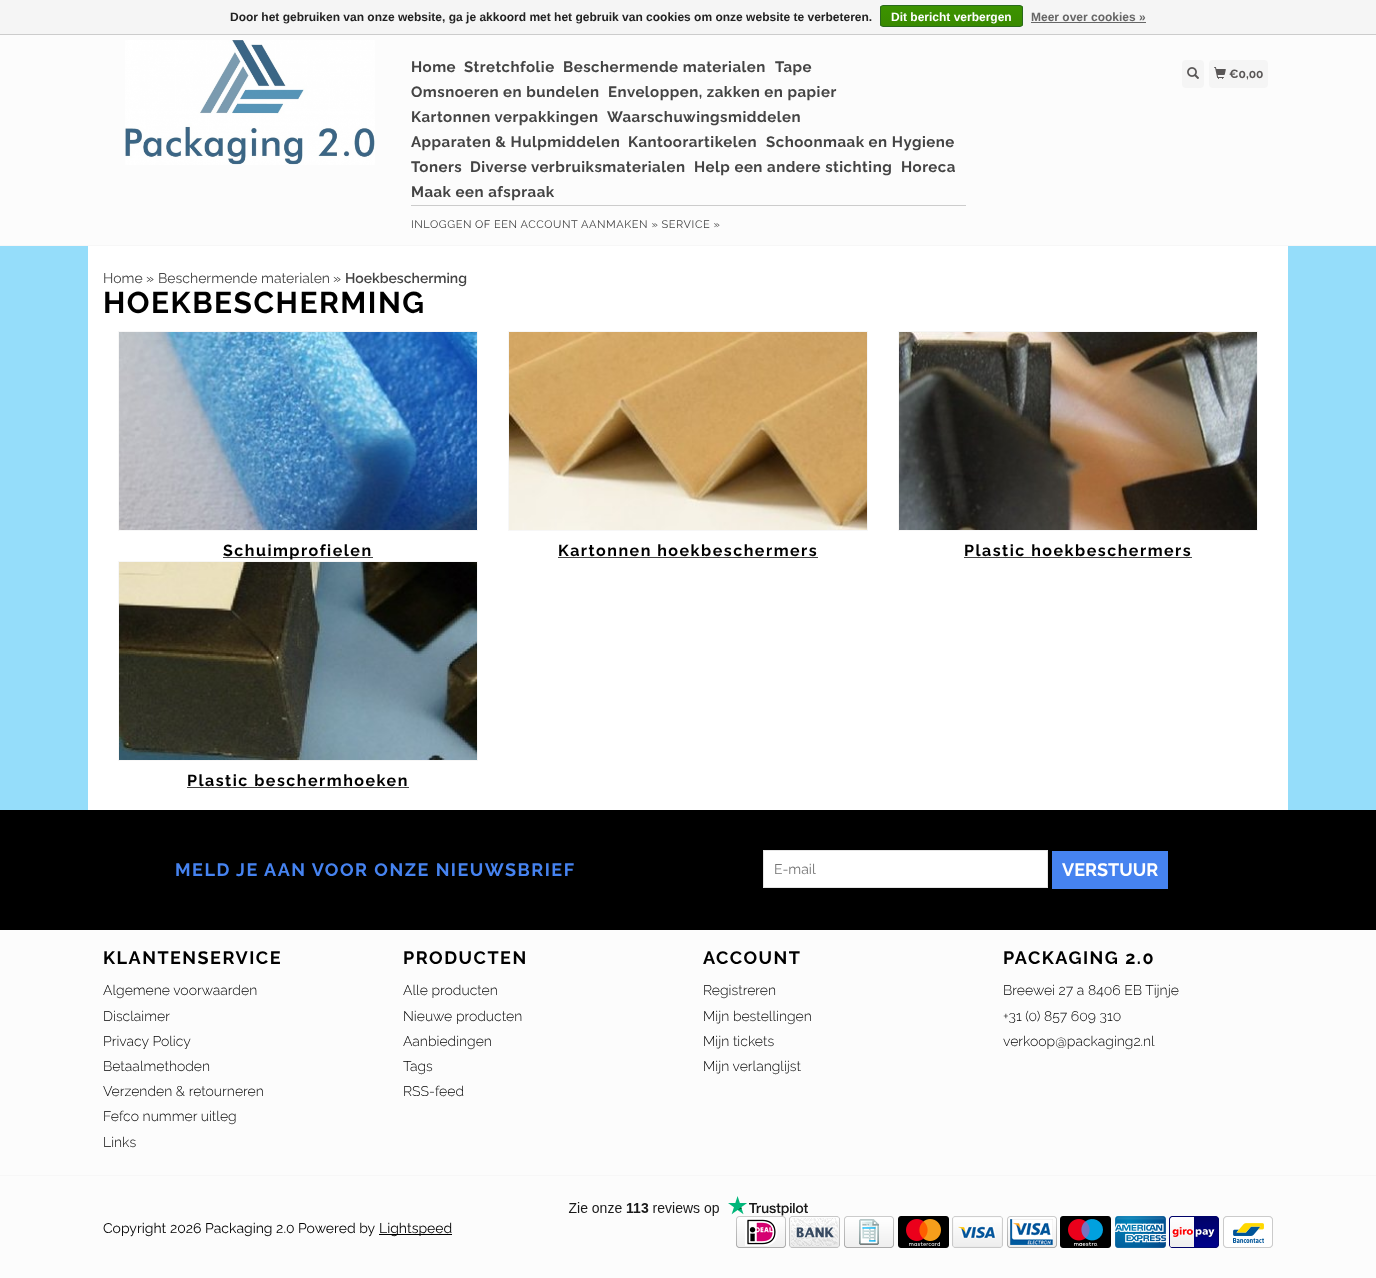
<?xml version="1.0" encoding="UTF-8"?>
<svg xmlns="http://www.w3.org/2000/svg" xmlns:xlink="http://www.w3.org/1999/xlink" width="1376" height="1278">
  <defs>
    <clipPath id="clip1"><rect x="880" y="5" width="143" height="22" rx="3" /></clipPath>
    <linearGradient id="g1" gradientUnits="userSpaceOnUse" x1="952" y1="6" x2="952" y2="26"><stop offset="0" stop-color="#3c9300" /><stop offset="1" stop-color="#398a00" /></linearGradient>
  </defs>
  <rect width="100%" height="100%" fill="#fcfcfc" />
  <rect width="1376" height="34" fill="#f5f5f5" />
  <rect y="34" width="1376" height="1" fill="#cccccc" />
  <g clip-path="url(#clip1)">
    <rect x="880" y="6" width="143" height="20" fill="url(#g1)" />
  </g>
  <rect x="880.5" y="5.5" width="142" height="21" rx="2.5" fill="none" stroke="#29691d" />
  <rect x="1031" y="22" width="115" height="1" fill="#666666" />
  <rect y="245" width="1376" height="1" fill="#f7f7f7" />
  <image x="125" y="40" width="250" height="125" xlink:href="image1.png" />
  <rect x="411" y="205" width="555" height="1" fill="#cccccc" />
  <rect x="1182" y="60" width="22" height="28" rx="4" fill="#f5f5f5" />
  <image x="1187" y="67" width="12" height="12" xlink:href="image2.png" />
  <rect x="1209" y="60" width="59" height="28" rx="4" fill="#f5f5f5" />
  <image x="1214" y="67" width="12" height="12" xlink:href="image3.png" />
  <rect y="246" width="1376" height="564" fill="#95ddfa" />
  <rect x="88" y="246" width="1200" height="564" fill="#ffffff" />
  <rect x="118.5" y="331.5" width="359" height="199" fill="none" stroke="#f7f7f7" />
  <image x="119" y="332" width="358" height="198" xlink:href="image4.png" />
  <rect x="223" y="557" width="150" height="1" fill="#444444" />
  <rect x="508.5" y="331.5" width="359" height="199" fill="none" stroke="#f7f7f7" />
  <image x="509" y="332" width="358" height="198" xlink:href="image5.png" />
  <rect x="558" y="557" width="260" height="1" fill="#444444" />
  <rect x="898.5" y="331.5" width="359" height="199" fill="none" stroke="#f7f7f7" />
  <image x="899" y="332" width="358" height="198" xlink:href="image6.png" />
  <rect x="964" y="557" width="228" height="1" fill="#444444" />
  <rect x="118.5" y="561.5" width="359" height="199" fill="none" stroke="#f7f7f7" />
  <image x="119" y="562" width="358" height="198" xlink:href="image7.png" />
  <rect x="187" y="787" width="222" height="1" fill="#444444" />
  <rect y="810" width="1376" height="120" fill="#000000" />
  <rect x="763.5" y="850.5" width="284" height="37" fill="#ffffff" stroke="#e5e5e5" />
  <rect x="1052" y="851" width="116" height="38" fill="#4683f0" />
  <rect y="1175" width="1376" height="1" fill="#f7f7f7" />
  <image x="568" y="1196" width="240" height="20" xlink:href="image8.png" />
  <rect x="379" y="1234" width="73" height="1" fill="#000000" />
  <image x="736" y="1216" width="50" height="32" xlink:href="image9.png" />
  <image x="789" y="1216" width="51" height="32" xlink:href="image10.png" />
  <image x="844" y="1216" width="50" height="32" xlink:href="image11.png" />
  <image x="898" y="1216" width="51" height="32" xlink:href="image12.png" />
  <image x="952" y="1216" width="51" height="32" xlink:href="image13.png" />
  <image x="1007" y="1216" width="50" height="32" xlink:href="image14.png" />
  <image x="1060" y="1216" width="51" height="32" xlink:href="image15.png" />
  <image x="1115" y="1216" width="51" height="32" xlink:href="image16.png" />
  <image x="1169" y="1216" width="50" height="32" xlink:href="image17.png" />
  <image x="1223" y="1216" width="50" height="32" xlink:href="image18.png" />
  <text x="230" y="21" style="font-family: Liberation Sans; font-size: 12px; font-weight: bold; fill: #222222">Door het gebruiken van onze website, ga je akkoord met het gebruik van cookies om onze website te verbeteren.</text>
  <text x="891" y="21" style="font-family: Liberation Sans; font-size: 12px; font-weight: bold; fill: #ffffff">Dit bericht verbergen</text>
  <text x="1031" y="21" style="font-family: Liberation Sans; font-size: 12px; font-weight: bold; fill: #666666">Meer over cookies »</text>
  <text x="411" y="72" style="font-family: Raleway; font-size: 15px; font-weight: bold; letter-spacing: 0.5px; fill: #444444">Home</text>
  <text x="464" y="72" style="font-family: Raleway; font-size: 15px; font-weight: bold; letter-spacing: 0.5px; fill: #444444">Stretchfolie</text>
  <text x="563" y="72" style="font-family: Raleway; font-size: 15px; font-weight: bold; letter-spacing: 0.5px; fill: #444444">Beschermende materialen</text>
  <text x="775" y="72" style="font-family: Raleway; font-size: 15px; font-weight: bold; letter-spacing: 0.5px; fill: #444444">Tape</text>
  <text x="411" y="97" style="font-family: Raleway; font-size: 15px; font-weight: bold; letter-spacing: 0.5px; fill: #444444">Omsnoeren en bundelen</text>
  <text x="608" y="97" style="font-family: Raleway; font-size: 15px; font-weight: bold; letter-spacing: 0.5px; fill: #444444">Enveloppen, zakken en papier</text>
  <text x="411" y="122" style="font-family: Raleway; font-size: 15px; font-weight: bold; letter-spacing: 0.5px; fill: #444444">Kartonnen verpakkingen</text>
  <text x="607" y="122" style="font-family: Raleway; font-size: 15px; font-weight: bold; letter-spacing: 0.5px; fill: #444444">Waarschuwingsmiddelen</text>
  <text x="411" y="147" style="font-family: Raleway; font-size: 15px; font-weight: bold; letter-spacing: 0.5px; fill: #444444">Apparaten &amp; Hulpmiddelen</text>
  <text x="628" y="147" style="font-family: Raleway; font-size: 15px; font-weight: bold; letter-spacing: 0.5px; fill: #444444">Kantoorartikelen</text>
  <text x="766" y="147" style="font-family: Raleway; font-size: 15px; font-weight: bold; letter-spacing: 0.5px; fill: #444444">Schoonmaak en Hygiene</text>
  <text x="411" y="172" style="font-family: Raleway; font-size: 15px; font-weight: bold; letter-spacing: 0.5px; fill: #444444">Toners</text>
  <text x="470" y="172" style="font-family: Raleway; font-size: 15px; font-weight: bold; letter-spacing: 0.5px; fill: #444444">Diverse verbruiksmaterialen</text>
  <text x="694" y="172" style="font-family: Raleway; font-size: 15px; font-weight: bold; letter-spacing: 0.5px; fill: #444444">Help een andere stichting</text>
  <text x="901" y="172" style="font-family: Raleway; font-size: 15px; font-weight: bold; letter-spacing: 0.5px; fill: #444444">Horeca</text>
  <text x="411" y="197" style="font-family: Raleway; font-size: 15px; font-weight: bold; letter-spacing: 0.5px; fill: #444444">Maak een afspraak</text>
  <text x="411" y="228" style="font-family: Raleway; font-size: 11px; letter-spacing: 0.55px; fill: #444444">INLOGGEN</text>
  <text x="475" y="228" style="font-family: Raleway; font-size: 11px; letter-spacing: 0.55px; fill: #333333">OF</text>
  <text x="494" y="228" style="font-family: Raleway; font-size: 11px; letter-spacing: 0.55px; fill: #444444">EEN ACCOUNT AANMAKEN » SERVICE »</text>
  <text x="1229" y="78" style="font-family: Raleway; font-size: 12px; font-weight: bold; fill: #595656">€0,00</text>
  <text x="103" y="283" style="font-family: Raleway; font-size: 14px; fill: #444444">Home</text>
  <text x="146" y="283" style="font-family: Raleway; font-size: 14px; fill: #333333">»</text>
  <text x="158" y="283" style="font-family: Raleway; font-size: 14px; fill: #444444">Beschermende materialen</text>
  <text x="333" y="283" style="font-family: Raleway; font-size: 14px; fill: #333333">»</text>
  <text x="345" y="283" style="font-family: Raleway; font-size: 14px; font-weight: 600; fill: #444444">Hoekbescherming</text>
  <text x="103" y="313" style="font-family: Raleway; font-size: 30px; font-weight: bold; letter-spacing: 1.5px; fill: #000000">HOEKBESCHERMING</text>
  <text x="223" y="556" style="font-family: Raleway; font-size: 16px; font-weight: bold; letter-spacing: 1.5px; fill: #000000">Schuimprofielen</text>
  <text x="558" y="556" style="font-family: Raleway; font-size: 16px; font-weight: bold; letter-spacing: 1.5px; fill: #000000">Kartonnen hoekbeschermers</text>
  <text x="964" y="556" style="font-family: Raleway; font-size: 16px; font-weight: bold; letter-spacing: 1.5px; fill: #000000">Plastic hoekbeschermers</text>
  <text x="187" y="786" style="font-family: Raleway; font-size: 16px; font-weight: bold; letter-spacing: 1.5px; fill: #000000">Plastic beschermhoeken</text>
  <text x="175" y="876" style="font-family: Raleway; font-size: 18px; font-weight: bold; letter-spacing: 1.5px; fill: #4683f0">MELD JE AAN VOOR ONZE NIEUWSBRIEF</text>
  <text x="774" y="874" style="font-family: Raleway; font-size: 14px; fill: #757575">E-mail</text>
  <text x="1062" y="876" style="font-family: Raleway; font-size: 18px; font-weight: bold; fill: #ffffff">VERSTUUR</text>
  <text x="103" y="964" style="font-family: Raleway; font-size: 18px; font-weight: bold; letter-spacing: 1.5px; fill: #000000">KLANTENSERVICE</text>
  <text x="103" y="995" style="font-family: Raleway; font-size: 14px; font-weight: 300; fill: #000000">Algemene voorwaarden</text>
  <text x="103" y="1021" style="font-family: Raleway; font-size: 14px; font-weight: 300; fill: #000000">Disclaimer</text>
  <text x="103" y="1046" style="font-family: Raleway; font-size: 14px; font-weight: 300; fill: #000000">Privacy Policy</text>
  <text x="103" y="1071" style="font-family: Raleway; font-size: 14px; font-weight: 300; fill: #000000">Betaalmethoden</text>
  <text x="103" y="1096" style="font-family: Raleway; font-size: 14px; font-weight: 300; fill: #000000">Verzenden &amp; retourneren</text>
  <text x="103" y="1121" style="font-family: Raleway; font-size: 14px; font-weight: 300; fill: #000000">Fefco nummer uitleg</text>
  <text x="103" y="1147" style="font-family: Raleway; font-size: 14px; font-weight: 300; fill: #000000">Links</text>
  <text x="403" y="964" style="font-family: Raleway; font-size: 18px; font-weight: bold; letter-spacing: 1.5px; fill: #000000">PRODUCTEN</text>
  <text x="403" y="995" style="font-family: Raleway; font-size: 14px; font-weight: 300; fill: #000000">Alle producten</text>
  <text x="403" y="1021" style="font-family: Raleway; font-size: 14px; font-weight: 300; fill: #000000">Nieuwe producten</text>
  <text x="403" y="1046" style="font-family: Raleway; font-size: 14px; font-weight: 300; fill: #000000">Aanbiedingen</text>
  <text x="403" y="1071" style="font-family: Raleway; font-size: 14px; font-weight: 300; fill: #000000">Tags</text>
  <text x="403" y="1096" style="font-family: Raleway; font-size: 14px; font-weight: 300; fill: #000000">RSS-feed</text>
  <text x="703" y="964" style="font-family: Raleway; font-size: 18px; font-weight: bold; letter-spacing: 1.5px; fill: #000000">ACCOUNT</text>
  <text x="703" y="995" style="font-family: Raleway; font-size: 14px; font-weight: 300; fill: #000000">Registreren</text>
  <text x="703" y="1021" style="font-family: Raleway; font-size: 14px; font-weight: 300; fill: #000000">Mijn bestellingen</text>
  <text x="703" y="1046" style="font-family: Raleway; font-size: 14px; font-weight: 300; fill: #000000">Mijn tickets</text>
  <text x="703" y="1071" style="font-family: Raleway; font-size: 14px; font-weight: 300; fill: #000000">Mijn verlanglijst</text>
  <text x="1003" y="964" style="font-family: Raleway; font-size: 18px; font-weight: bold; letter-spacing: 1.5px; fill: #000000">PACKAGING 2.0</text>
  <text x="1003" y="995" style="font-family: Raleway; font-size: 14px; font-weight: 300; fill: #000000">Breewei 27 a 8406 EB Tijnje</text>
  <text x="1003" y="1021" style="font-family: Raleway; font-size: 14px; font-weight: 300; fill: #000000">+31 (0) 857 609 310</text>
  <text x="1003" y="1046" style="font-family: Raleway; font-size: 14px; font-weight: 300; fill: #000000">verkoop@packaging2.nl</text>
  <text x="103" y="1233" style="font-family: Raleway; font-size: 14px; fill: #000000">Copyright 2026 Packaging 2.0</text>
  <text x="298" y="1233" style="font-family: Raleway; font-size: 14px; fill: #000000">Powered by</text>
  <text x="379" y="1233" style="font-family: Raleway; font-size: 14px; fill: #000000">Lightspeed</text>
</svg>
